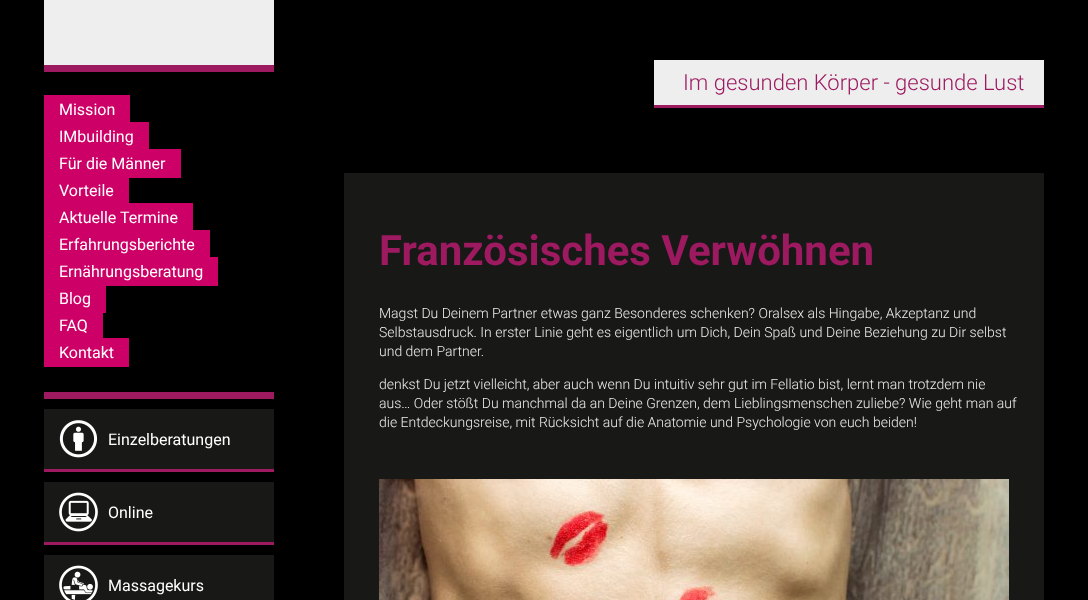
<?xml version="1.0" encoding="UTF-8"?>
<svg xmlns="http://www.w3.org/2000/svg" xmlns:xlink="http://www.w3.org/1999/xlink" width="1088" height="600">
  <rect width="100%" height="100%" fill="#000000" />
  <rect x="44" width="230" height="65" fill="#eeeeee" />
  <rect x="44" y="65" width="230" height="7" fill="#9d1a60" />
  <rect x="44" y="392" width="230" height="7" fill="#9d1a60" />
  <rect x="44" y="95" width="86" height="27" fill="#cc0066" />
  <rect x="44" y="122" width="105" height="27" fill="#cc0066" />
  <rect x="44" y="149" width="137" height="29" fill="#cc0066" />
  <rect x="44" y="178" width="85" height="25" fill="#cc0066" />
  <rect x="44" y="203" width="149" height="27" fill="#cc0066" />
  <rect x="44" y="230" width="166" height="27" fill="#cc0066" />
  <rect x="44" y="257" width="174" height="29" fill="#cc0066" />
  <rect x="44" y="286" width="62" height="27" fill="#cc0066" />
  <rect x="44" y="313" width="59" height="25" fill="#cc0066" />
  <rect x="44" y="338" width="85" height="29" fill="#cc0066" />
  <rect x="44" y="409" width="230" height="60" fill="#181817" />
  <rect x="44" y="469" width="230" height="3" fill="#9d1a60" />
  <image x="59" y="420" width="39" height="38" xlink:href="image1.png" />
  <rect x="44" y="482" width="230" height="60" fill="#181817" />
  <rect x="44" y="542" width="230" height="3" fill="#9d1a60" />
  <image x="59" y="492" width="39" height="40" xlink:href="image2.png" />
  <rect x="44" y="555" width="230" height="45" fill="#181817" />
  <image x="59" y="565" width="39" height="35" xlink:href="image3.png" />
  <rect x="654" y="60" width="390" height="45" fill="#eeeeee" />
  <rect x="654" y="105" width="390" height="3" fill="#9d1a60" />
  <rect x="344" y="173" width="700" height="427" fill="#181817" />
  <image x="379" y="479" width="630" height="121" xlink:href="image4.png" />
  <text x="59" y="115" style="font-family: Roboto; font-size: 16px; fill: #ffffff">Mission</text>
  <text x="59" y="142" style="font-family: Roboto; font-size: 16px; fill: #ffffff">IMbuilding</text>
  <text x="59" y="169" style="font-family: Roboto; font-size: 16px; fill: #ffffff">Für die Männer</text>
  <text x="59" y="196" style="font-family: Roboto; font-size: 16px; fill: #ffffff">Vorteile</text>
  <text x="59" y="223" style="font-family: Roboto; font-size: 16px; fill: #ffffff">Aktuelle Termine</text>
  <text x="59" y="250" style="font-family: Roboto; font-size: 16px; fill: #ffffff">Erfahrungsberichte</text>
  <text x="59" y="277" style="font-family: Roboto; font-size: 16px; fill: #ffffff">Ernährungsberatung</text>
  <text x="59" y="304" style="font-family: Roboto; font-size: 16px; fill: #ffffff">Blog</text>
  <text x="59" y="331" style="font-family: Roboto; font-size: 16px; fill: #ffffff">FAQ</text>
  <text x="59" y="358" style="font-family: Roboto; font-size: 16px; fill: #ffffff">Kontakt</text>
  <text x="108" y="445" style="font-family: Roboto; font-size: 16px; fill: #ffffff">Einzelberatungen</text>
  <text x="108" y="518" style="font-family: Roboto; font-size: 16px; fill: #ffffff">Online</text>
  <text x="108" y="591" style="font-family: Roboto; font-size: 16px; fill: #ffffff">Massagekurs</text>
  <text x="683" y="90" style="font-family: Roboto; font-size: 22px; font-weight: 300; fill: #9d1a60">Im gesunden Körper - gesunde Lust</text>
  <text x="379" y="265" style="font-family: Roboto; font-size: 42px; font-weight: bold; fill: #9d1a60">Französisches Verwöhnen</text>
  <text x="379" y="318" style="font-family: Roboto; font-size: 14px; font-weight: 300; fill: #eeeeee">Magst Du Deinem Partner etwas ganz Besonderes schenken? Oralsex als Hingabe, Akzeptanz und</text>
  <text x="379" y="337" style="font-family: Roboto; font-size: 14px; font-weight: 300; fill: #eeeeee">Selbstausdruck. In erster Linie geht es eigentlich um Dich, Dein Spaß und Deine Beziehung zu Dir selbst</text>
  <text x="379" y="356" style="font-family: Roboto; font-size: 14px; font-weight: 300; fill: #eeeeee">und dem Partner.</text>
  <text x="379" y="389" style="font-family: Roboto; font-size: 14px; font-weight: 300; fill: #eeeeee">denkst Du jetzt vielleicht, aber auch wenn Du intuitiv sehr gut im Fellatio bist, lernt man trotzdem nie</text>
  <text x="379" y="408" style="font-family: Roboto; font-size: 14px; font-weight: 300; fill: #eeeeee">aus… Oder stößt Du manchmal da an Deine Grenzen, dem Lieblingsmenschen zuliebe? Wie geht man auf</text>
  <text x="379" y="427" style="font-family: Roboto; font-size: 14px; font-weight: 300; fill: #eeeeee">die Entdeckungsreise, mit Rücksicht auf die Anatomie und Psychologie von euch beiden!</text>
</svg>
